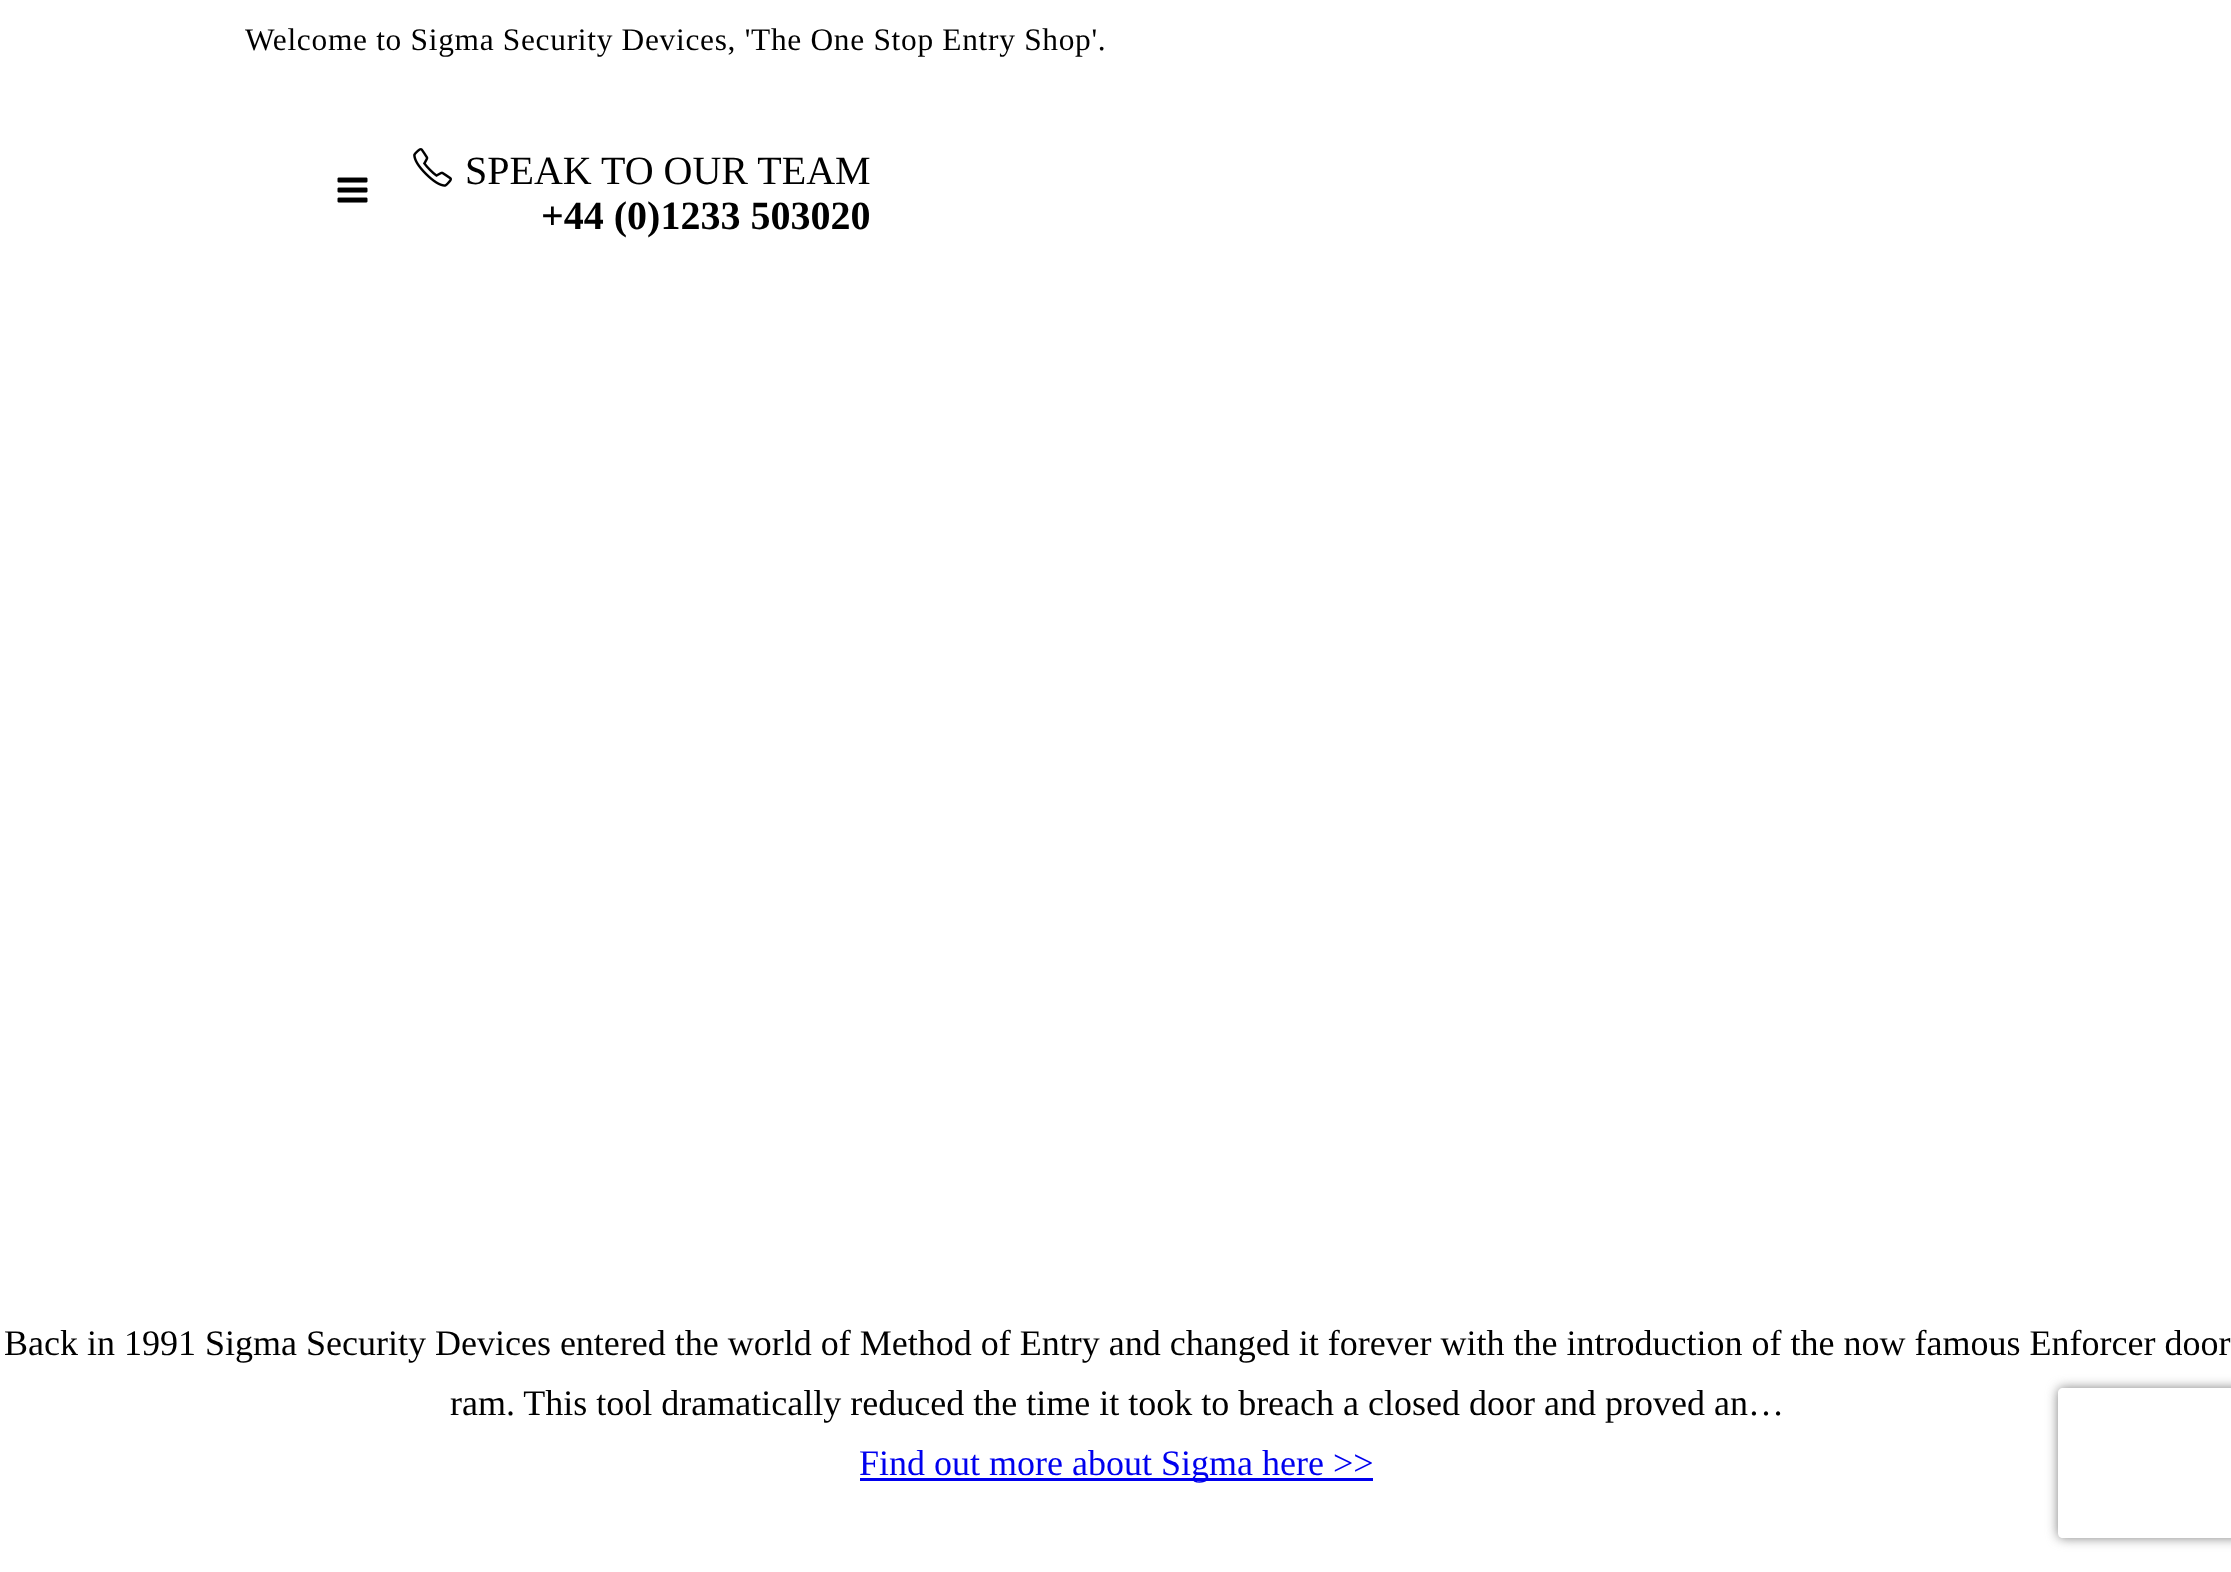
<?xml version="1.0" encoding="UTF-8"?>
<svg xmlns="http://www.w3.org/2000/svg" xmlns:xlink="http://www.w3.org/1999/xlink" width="2231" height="1572">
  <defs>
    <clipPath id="clip1"><path d="M 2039 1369 h 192 v 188 h -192 z m 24 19 h 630 c 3 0 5 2 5 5 v 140 c 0 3 -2 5 -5 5 h -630 c -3 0 -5 -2 -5 -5 v -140 c 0 -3 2 -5 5 -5 z" clip-rule="evenodd" /></clipPath>
  </defs>
  <rect width="100%" height="100%" fill="#ffffff" />
  <image x="337" y="177" width="31" height="26" xlink:href="image1.png" />
  <image x="413" y="148" width="39" height="39" xlink:href="image2.png" />
  <rect x="860" y="1478" width="513" height="3" fill="#0000ee" />
  <g clip-path="url(#clip1)">
    <rect x="2058" y="1388" width="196" height="150" rx="5" fill="#808080" filter="blur(6px)" />
  </g>
  <text x="245" y="50" style="font-family: Liberation Serif; font-size: 31.4px; letter-spacing: 0.7px; fill: #000000">Welcome to Sigma Security Devices, 'The One Stop Entry Shop'.</text>
  <text x="465" y="184" style="font-family: Liberation Serif; font-size: 40px; fill: #000000">SPEAK TO OUR TEAM</text>
  <text x="541" y="229" style="font-family: Liberation Serif; font-size: 40px; font-weight: bold; fill: #000000">+44 (0)1233 503020</text>
  <text x="4" y="1355" style="font-family: Liberation Serif; font-size: 36px; fill: #000000">Back in 1991 Sigma Security Devices entered the world of Method of Entry and changed it forever with the introduction of the now famous Enforcer door</text>
  <text x="450" y="1415" style="font-family: Liberation Serif; font-size: 36px; fill: #000000">ram. This tool dramatically reduced the time it took to breach a closed door and proved an…</text>
  <text x="859" y="1475" style="font-family: Liberation Serif; font-size: 36px; fill: #0000ee">Find out more about Sigma here &gt;&gt;</text>
</svg>
